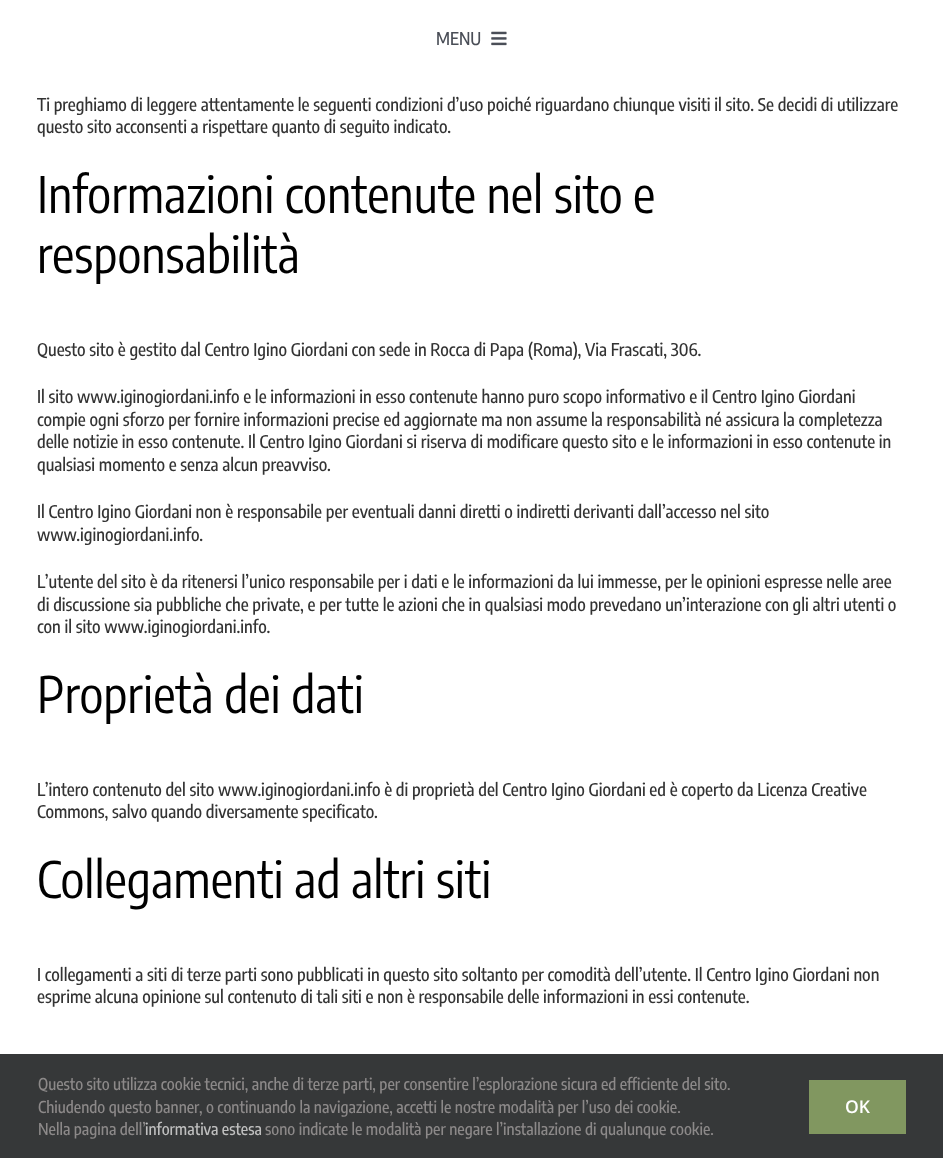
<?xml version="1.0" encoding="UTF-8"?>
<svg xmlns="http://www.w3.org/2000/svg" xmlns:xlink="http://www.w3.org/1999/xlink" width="943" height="1158">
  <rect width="100%" height="100%" fill="#ffffff" />
  <image x="491" y="31" width="16" height="15" xlink:href="image1.png" />
  <rect y="1054" width="943" height="104" fill="#363839" />
  <rect x="809" y="1080" width="97" height="54" fill="#819760" />
  <text x="436" y="45" style="font-family: Encode Sans Condensed; font-size: 17.5px; font-weight: 500; fill: #4a4e57">MENU</text>
  <text x="37" y="111" style="font-family: Encode Sans Condensed; font-size: 17.5px; font-weight: 500; fill: #333333">Ti preghiamo di leggere attentamente le seguenti condizioni d’uso poiché riguardano chiunque visiti il sito. Se decidi di utilizzare</text>
  <text x="37" y="133" style="font-family: Encode Sans Condensed; font-size: 17.5px; font-weight: 500; fill: #333333">questo sito acconsenti a rispettare quanto di seguito indicato.</text>
  <text x="37" y="213" style="font-family: Encode Sans Condensed; font-size: 50px; fill: #000000">Informazioni contenute nel sito e</text>
  <text x="37" y="273" style="font-family: Encode Sans Condensed; font-size: 50px; fill: #000000">responsabilità</text>
  <text x="37" y="356" style="font-family: Encode Sans Condensed; font-size: 17.5px; font-weight: 500; fill: #333333">Questo sito è gestito dal Centro Igino Giordani con sede in Rocca di Papa (Roma), Via Frascati, 306.</text>
  <text x="37" y="403" style="font-family: Encode Sans Condensed; font-size: 17.5px; font-weight: 500; fill: #333333">Il sito www.iginogiordani.info e le informazioni in esso contenute hanno puro scopo informativo e il Centro Igino Giordani</text>
  <text x="37" y="426" style="font-family: Encode Sans Condensed; font-size: 17.5px; font-weight: 500; fill: #333333">compie ogni sforzo per fornire informazioni precise ed aggiornate ma non assume la responsabilità né assicura la completezza</text>
  <text x="37" y="448" style="font-family: Encode Sans Condensed; font-size: 17.5px; font-weight: 500; fill: #333333">delle notizie in esso contenute. Il Centro Igino Giordani si riserva di modificare questo sito e le informazioni in esso contenute in</text>
  <text x="37" y="471" style="font-family: Encode Sans Condensed; font-size: 17.5px; font-weight: 500; fill: #333333">qualsiasi momento e senza alcun preavviso.</text>
  <text x="37" y="518" style="font-family: Encode Sans Condensed; font-size: 17.5px; font-weight: 500; fill: #333333">Il Centro Igino Giordani non è responsabile per eventuali danni diretti o indiretti derivanti dall’accesso nel sito</text>
  <text x="37" y="541" style="font-family: Encode Sans Condensed; font-size: 17.5px; font-weight: 500; fill: #333333">www.iginogiordani.info.</text>
  <text x="37" y="588" style="font-family: Encode Sans Condensed; font-size: 17.5px; font-weight: 500; fill: #333333">L’utente del sito è da ritenersi l’unico responsabile per i dati e le informazioni da lui immesse, per le opinioni espresse nelle aree</text>
  <text x="37" y="611" style="font-family: Encode Sans Condensed; font-size: 17.5px; font-weight: 500; fill: #333333">di discussione sia pubbliche che private, e per tutte le azioni che in qualsiasi modo prevedano un’interazione con gli altri utenti o</text>
  <text x="37" y="633" style="font-family: Encode Sans Condensed; font-size: 17.5px; font-weight: 500; fill: #333333">con il sito www.iginogiordani.info.</text>
  <text x="37" y="713" style="font-family: Encode Sans Condensed; font-size: 50px; fill: #000000">Proprietà dei dati</text>
  <text x="37" y="796" style="font-family: Encode Sans Condensed; font-size: 17.5px; font-weight: 500; fill: #333333">L’intero contenuto del sito www.iginogiordani.info è di proprietà del Centro Igino Giordani ed è coperto da Licenza Creative</text>
  <text x="37" y="818" style="font-family: Encode Sans Condensed; font-size: 17.5px; font-weight: 500; fill: #333333">Commons, salvo quando diversamente specificato.</text>
  <text x="37" y="898" style="font-family: Encode Sans Condensed; font-size: 50px; fill: #000000">Collegamenti ad altri siti</text>
  <text x="37" y="981" style="font-family: Encode Sans Condensed; font-size: 17.5px; font-weight: 500; fill: #333333">I collegamenti a siti di terze parti sono pubblicati in questo sito soltanto per comodità dell’utente. Il Centro Igino Giordani non</text>
  <text x="37" y="1003" style="font-family: Encode Sans Condensed; font-size: 17.5px; font-weight: 500; fill: #333333">esprime alcuna opinione sul contenuto di tali siti e non è responsabile delle informazioni in essi contenute.</text>
  <text x="38" y="1090" style="font-family: Encode Sans Condensed; font-size: 16.25px; font-weight: 500; fill: #8c8989">Questo sito utilizza cookie tecnici, anche di terze parti, per consentire l’esplorazione sicura ed efficiente del sito.</text>
  <text x="38" y="1113" style="font-family: Encode Sans Condensed; font-size: 16.25px; font-weight: 500; fill: #8c8989">Chiudendo questo banner, o continuando la navigazione, accetti le nostre modalità per l’uso dei cookie.</text>
  <text x="38" y="1135" style="font-family: Encode Sans Condensed; font-size: 16.25px; font-weight: 500; fill: #8c8989">Nella pagina dell’</text>
  <text x="145" y="1135" style="font-family: Encode Sans Condensed; font-size: 16.25px; font-weight: 500; fill: #bfbfbf">informativa estesa</text>
  <text x="265" y="1135" style="font-family: Encode Sans Condensed; font-size: 16.25px; font-weight: 500; fill: #8c8989">sono indicate le modalità per negare l’installazione di qualunque cookie.</text>
  <text x="845" y="1113" style="font-family: Open Sans; font-size: 17.5px; font-weight: 600; fill: #ffffff">OK</text>
</svg>
